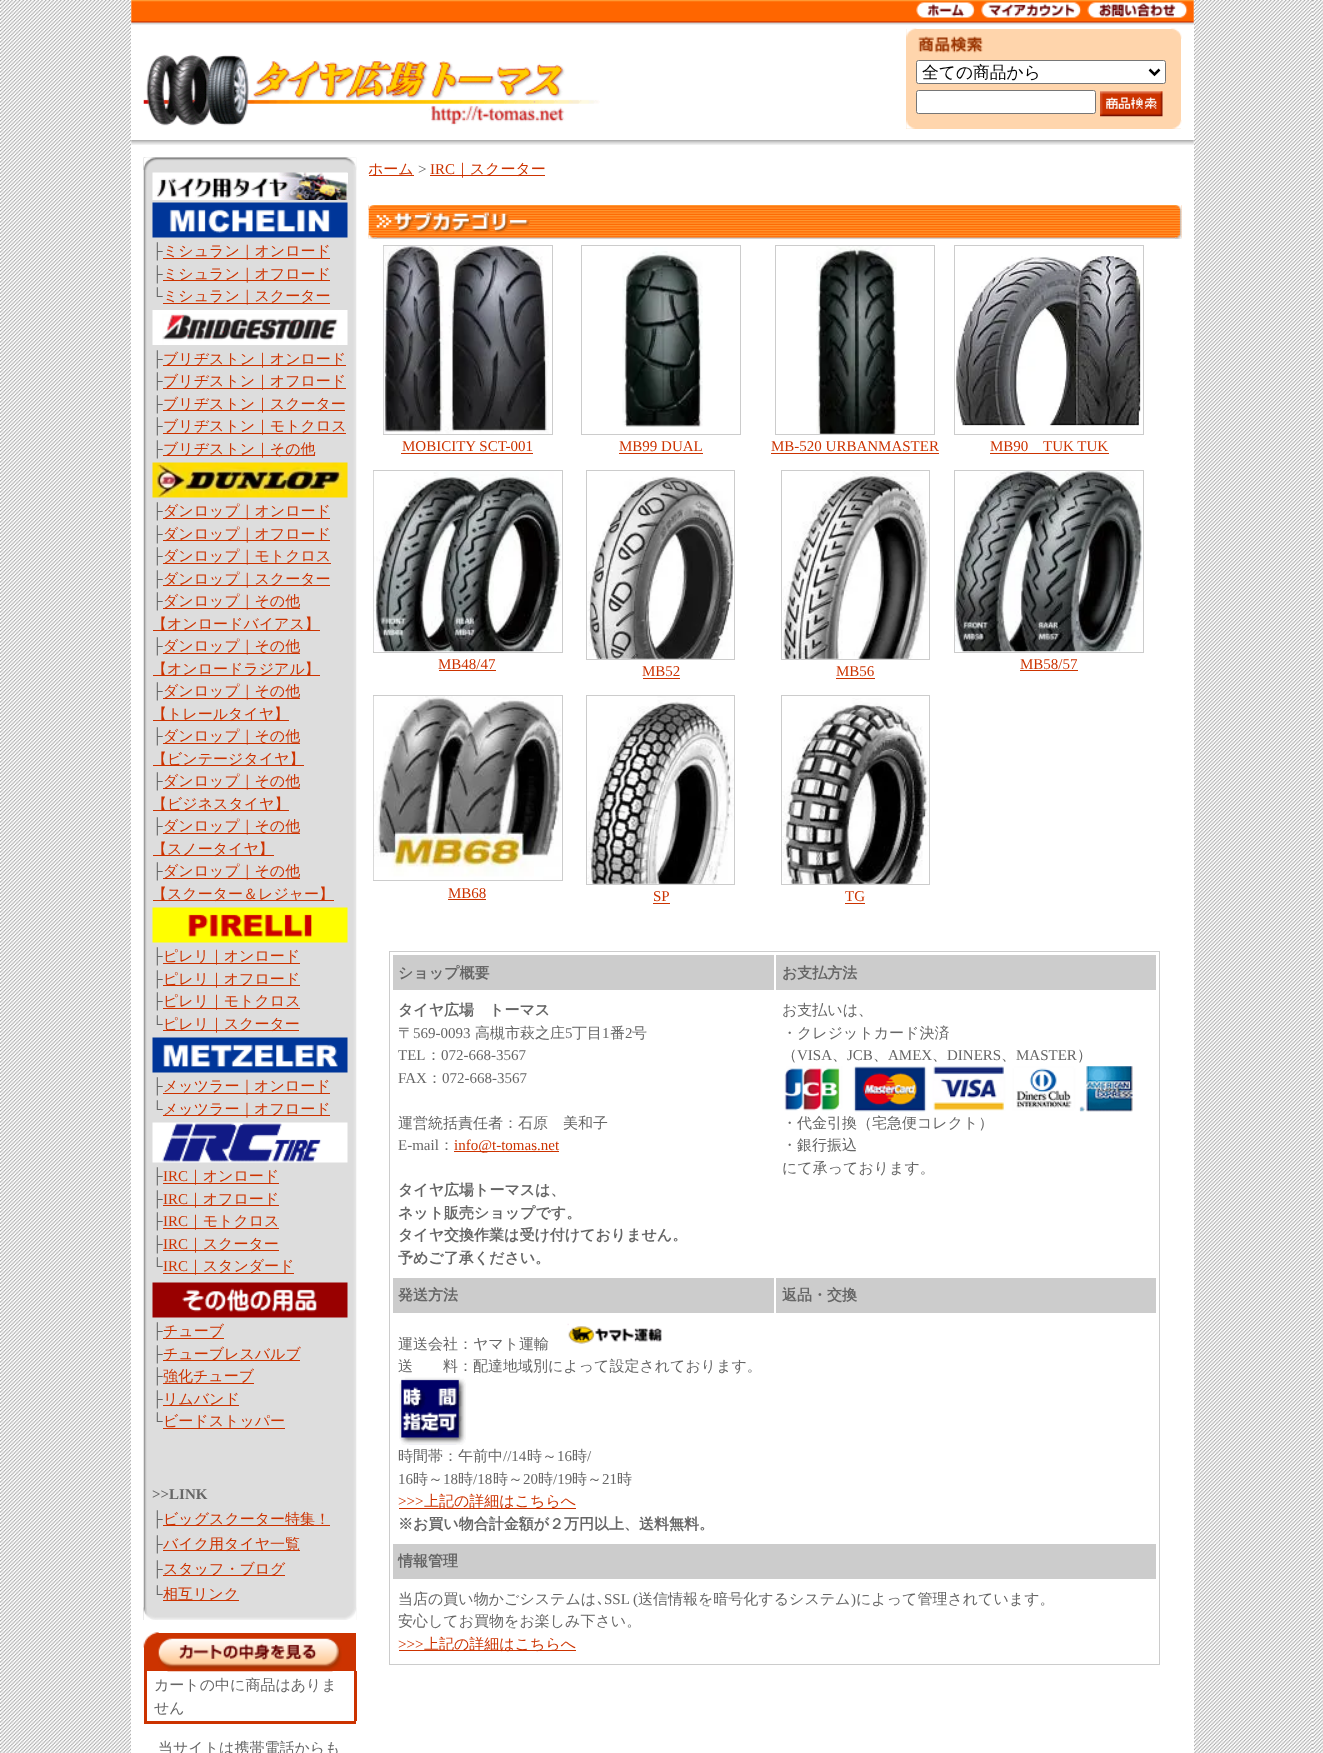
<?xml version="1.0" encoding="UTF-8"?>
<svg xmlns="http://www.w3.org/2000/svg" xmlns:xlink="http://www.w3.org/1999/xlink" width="1323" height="1753">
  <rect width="100%" height="100%" fill="#ffffff" />
  <image x="0" y="0" width="1323" height="1753" xlink:href="image1.png" />
  <rect x="131" width="1063" height="1753" fill="#ffffff" />
  <image x="131" y="0" width="1063" height="25" xlink:href="image2.png" />
  <image x="916" y="2" width="59" height="16" xlink:href="image3.png" />
  <image x="981" y="2" width="101" height="16" xlink:href="image4.png" />
  <image x="1087" y="2" width="101" height="16" xlink:href="image5.png" />
  <image x="131" y="140" width="1063" height="5" xlink:href="image6.png" />
  <image x="143" y="54" width="457" height="72" xlink:href="image7.png" />
  <rect x="906" y="29" width="275" height="100" fill="#ffd5ac" />
  <image x="906" y="120" width="276" height="9" xlink:href="image8.png" />
  <image x="906" y="28" width="276" height="25" xlink:href="image9.png" />
  <rect x="916.5" y="60.5" width="249" height="23" rx="2" fill="#ffffff" stroke="#767676" />
  <path d="M 1149.5 69.5 l 5 5 l 5 -5" fill="none" stroke="#000000" stroke-width="2.5" />
  <rect x="916.5" y="90.5" width="179" height="23" rx="2" fill="#ffffff" stroke="#767676" />
  <image x="1100" y="91" width="63" height="26" xlink:href="image10.png" />
  <image x="143" y="157" width="214" height="1463" xlink:href="image11.png" />
  <image x="143" y="157" width="214" height="13" xlink:href="image12.png" />
  <rect x="347" y="173" width="1" height="27" fill="#ffffff" />
  <image x="152" y="172" width="196" height="28" xlink:href="image13.png" />
  <image x="152" y="202" width="196" height="36" xlink:href="image14.png" />
  <rect x="163" y="258" width="167" height="1" fill="#cc3300" />
  <rect x="163" y="280" width="167" height="1" fill="#cc3300" />
  <rect x="163" y="303" width="167" height="1" fill="#cc3300" />
  <image x="152" y="310" width="196" height="35" xlink:href="image15.png" />
  <rect x="163" y="365" width="183" height="1" fill="#cc3300" />
  <rect x="163" y="388" width="183" height="1" fill="#cc3300" />
  <rect x="163" y="410" width="182" height="1" fill="#cc3300" />
  <rect x="163" y="433" width="183" height="1" fill="#cc3300" />
  <rect x="163" y="455" width="152" height="1" fill="#cc3300" />
  <image x="152" y="462" width="196" height="36" xlink:href="image16.png" />
  <rect x="163" y="518" width="167" height="1" fill="#cc3300" />
  <rect x="163" y="540" width="167" height="1" fill="#cc3300" />
  <rect x="163" y="563" width="168" height="1" fill="#cc3300" />
  <rect x="163" y="585" width="167" height="1" fill="#cc3300" />
  <rect x="163" y="608" width="137" height="1" fill="#cc3300" />
  <rect x="153" y="630" width="167" height="1" fill="#cc3300" />
  <rect x="163" y="653" width="137" height="1" fill="#cc3300" />
  <rect x="153" y="675" width="167" height="1" fill="#cc3300" />
  <rect x="163" y="698" width="137" height="1" fill="#cc3300" />
  <rect x="153" y="720" width="136" height="1" fill="#cc3300" />
  <rect x="163" y="743" width="137" height="1" fill="#cc3300" />
  <rect x="153" y="765" width="151" height="1" fill="#cc3300" />
  <rect x="163" y="788" width="137" height="1" fill="#cc3300" />
  <rect x="153" y="810" width="136" height="1" fill="#cc3300" />
  <rect x="163" y="833" width="137" height="1" fill="#cc3300" />
  <rect x="153" y="855" width="121" height="1" fill="#cc3300" />
  <rect x="163" y="878" width="137" height="1" fill="#cc3300" />
  <rect x="153" y="900" width="181" height="1" fill="#cc3300" />
  <image x="152" y="907" width="196" height="36" xlink:href="image17.png" />
  <rect x="163" y="963" width="137" height="1" fill="#cc3300" />
  <rect x="163" y="985" width="137" height="1" fill="#cc3300" />
  <rect x="163" y="1008" width="137" height="1" fill="#cc3300" />
  <rect x="163" y="1030" width="136" height="1" fill="#cc3300" />
  <image x="152" y="1037" width="196" height="36" xlink:href="image18.png" />
  <rect x="163" y="1093" width="167" height="1" fill="#cc3300" />
  <rect x="163" y="1115" width="167" height="1" fill="#cc3300" />
  <image x="152" y="1122" width="196" height="41" xlink:href="image19.png" />
  <rect x="163" y="1183" width="116" height="1" fill="#cc3300" />
  <rect x="163" y="1205" width="116" height="1" fill="#cc3300" />
  <rect x="163" y="1228" width="116" height="1" fill="#cc3300" />
  <rect x="163" y="1250" width="116" height="1" fill="#cc3300" />
  <rect x="163" y="1273" width="131" height="1" fill="#cc3300" />
  <image x="152" y="1282" width="196" height="36" xlink:href="image20.png" />
  <rect x="163" y="1338" width="61" height="1" fill="#cc3300" />
  <rect x="163" y="1360" width="137" height="1" fill="#cc3300" />
  <rect x="163" y="1383" width="91" height="1" fill="#cc3300" />
  <rect x="163" y="1405" width="76" height="1" fill="#cc3300" />
  <rect x="163" y="1428" width="122" height="1" fill="#cc3300" />
  <rect x="163" y="1525" width="167" height="1" fill="#cc3300" />
  <rect x="163" y="1550" width="137" height="1" fill="#cc3300" />
  <rect x="163" y="1575" width="122" height="1" fill="#cc3300" />
  <rect x="163" y="1600" width="76" height="1" fill="#cc3300" />
  <image x="143" y="1607" width="214" height="13" xlink:href="image21.png" />
  <rect x="144" y="1721" width="212" height="3" fill="#cc3300" />
  <rect x="144" y="1633" width="212" height="38" fill="#cc3300" />
  <image x="143" y="1632" width="16" height="16" xlink:href="image22.png" />
  <image x="158" y="1638" width="184" height="34" xlink:href="image23.png" />
  <rect x="354" y="1671" width="3" height="50" fill="#cc3300" />
  <rect x="144" y="1671" width="3" height="50" fill="#cc3300" />
  <rect x="369" y="175" width="45" height="1" fill="#cc3300" />
  <rect x="430" y="175" width="115" height="1" fill="#cc3300" />
  <image x="368" y="205" width="814" height="34" xlink:href="image24.png" />
  <image x="368" y="205" width="24" height="34" xlink:href="image25.png" />
  <image x="1175" y="205" width="7" height="34" xlink:href="image26.png" />
  <image x="393" y="212" width="137" height="21" xlink:href="image27.png" />
  <rect x="383.5" y="245.5" width="169" height="189" fill="none" stroke="#cccccc" />
  <image x="383" y="246" width="166" height="188" xlink:href="image28.png" />
  <rect x="401" y="453" width="132" height="1" fill="#cc3300" />
  <rect x="581.5" y="245.5" width="159" height="189" fill="none" stroke="#cccccc" />
  <image x="622" y="247" width="81" height="180" xlink:href="image29.png" />
  <rect x="619" y="453" width="84" height="1" fill="#cc3300" />
  <rect x="775.5" y="245.5" width="159" height="189" fill="none" stroke="#cccccc" />
  <image x="816" y="246" width="81" height="188" xlink:href="image30.png" />
  <rect x="771" y="453" width="168" height="1" fill="#cc3300" />
  <rect x="954.5" y="245.5" width="189" height="189" fill="none" stroke="#cccccc" />
  <image x="955" y="256" width="186" height="170" xlink:href="image31.png" />
  <rect x="990" y="453" width="119" height="1" fill="#cc3300" />
  <rect x="373.5" y="470.5" width="189" height="182" fill="none" stroke="#cccccc" />
  <image x="373" y="471" width="189" height="181" xlink:href="image32.png" />
  <rect x="439" y="670" width="57" height="1" fill="#cc3300" />
  <rect x="954.5" y="470.5" width="189" height="182" fill="none" stroke="#cccccc" />
  <image x="955" y="471" width="188" height="181" xlink:href="image33.png" />
  <rect x="1020" y="670" width="58" height="1" fill="#cc3300" />
  <rect x="586.5" y="470.5" width="148" height="189" fill="none" stroke="#cccccc" />
  <image x="587" y="476" width="147" height="183" xlink:href="image34.png" />
  <rect x="643" y="678" width="37" height="1" fill="#cc3300" />
  <rect x="781.5" y="470.5" width="148" height="189" fill="none" stroke="#cccccc" />
  <image x="782" y="471" width="147" height="188" xlink:href="image35.png" />
  <rect x="836" y="678" width="39" height="1" fill="#cc3300" />
  <rect x="373.5" y="695.5" width="189" height="185" fill="none" stroke="#cccccc" />
  <image x="373" y="696" width="189" height="184" xlink:href="image36.png" />
  <rect x="448" y="899" width="38" height="1" fill="#cc3300" />
  <rect x="586.5" y="695.5" width="148" height="189" fill="none" stroke="#cccccc" />
  <image x="587" y="696" width="147" height="188" xlink:href="image37.png" />
  <rect x="653" y="903" width="17" height="1" fill="#cc3300" />
  <rect x="781.5" y="695.5" width="148" height="189" fill="none" stroke="#cccccc" />
  <image x="782" y="698" width="147" height="186" xlink:href="image38.png" />
  <rect x="845" y="903" width="20" height="1" fill="#cc3300" />
  <rect x="389.5" y="951.5" width="770" height="713" fill="none" stroke="#cccccc" />
  <rect x="393" y="955" width="381" height="35" fill="#cccccc" />
  <rect x="776" y="955" width="380" height="35" fill="#cccccc" />
  <rect x="454" y="1151" width="105" height="1" fill="#cc3300" />
  <image x="784" y="1066" width="349" height="46" xlink:href="image39.png" />
  <rect x="393" y="1278" width="381" height="35" fill="#cccccc" />
  <rect x="776" y="1278" width="380" height="35" fill="#cccccc" />
  <image x="567" y="1323" width="95" height="21" xlink:href="image40.png" />
  <image x="399" y="1377" width="67" height="68" xlink:href="image41.png" />
  <rect x="399" y="1508" width="177" height="1" fill="#cc3300" />
  <rect x="393" y="1544" width="763" height="35" fill="#cccccc" />
  <rect x="399" y="1650" width="177" height="1" fill="#cc3300" />
  <text x="922" y="78" style="font-family: WenQuanYi Zen Hei; font-size: 16.75px; font-weight: 500; fill: #000000">全ての商品から</text>
  <text x="152" y="256" style="font-family: Liberation Serif; font-size: 15px; fill: #666666">├</text>
  <text x="163" y="256" style="font-family: WenQuanYi Zen Hei; font-size: 15px; font-weight: 500; fill: #cc3300">ミシュラン｜オンロード</text>
  <text x="152" y="279" style="font-family: Liberation Serif; font-size: 15px; fill: #666666">├</text>
  <text x="163" y="279" style="font-family: WenQuanYi Zen Hei; font-size: 15px; font-weight: 500; fill: #cc3300">ミシュラン｜オフロード</text>
  <text x="152" y="301" style="font-family: Liberation Serif; font-size: 15px; fill: #666666">└</text>
  <text x="163" y="301" style="font-family: WenQuanYi Zen Hei; font-size: 15px; font-weight: 500; fill: #cc3300">ミシュラン｜スクーター</text>
  <text x="152" y="364" style="font-family: Liberation Serif; font-size: 15px; fill: #666666">├</text>
  <text x="163" y="364" style="font-family: WenQuanYi Zen Hei; font-size: 15px; font-weight: 500; fill: #cc3300">ブリヂストン｜オンロード</text>
  <text x="152" y="386" style="font-family: Liberation Serif; font-size: 15px; fill: #666666">├</text>
  <text x="163" y="386" style="font-family: WenQuanYi Zen Hei; font-size: 15px; font-weight: 500; fill: #cc3300">ブリヂストン｜オフロード</text>
  <text x="152" y="409" style="font-family: Liberation Serif; font-size: 15px; fill: #666666">├</text>
  <text x="163" y="409" style="font-family: WenQuanYi Zen Hei; font-size: 15px; font-weight: 500; fill: #cc3300">ブリヂストン｜スクーター</text>
  <text x="152" y="431" style="font-family: Liberation Serif; font-size: 15px; fill: #666666">├</text>
  <text x="163" y="431" style="font-family: WenQuanYi Zen Hei; font-size: 15px; font-weight: 500; fill: #cc3300">ブリヂストン｜モトクロス</text>
  <text x="152" y="454" style="font-family: Liberation Serif; font-size: 15px; fill: #666666">├</text>
  <text x="163" y="454" style="font-family: WenQuanYi Zen Hei; font-size: 15px; font-weight: 500; fill: #cc3300">ブリヂストン｜その他</text>
  <text x="152" y="516" style="font-family: Liberation Serif; font-size: 15px; fill: #666666">├</text>
  <text x="163" y="516" style="font-family: WenQuanYi Zen Hei; font-size: 15px; font-weight: 500; fill: #cc3300">ダンロップ｜オンロード</text>
  <text x="152" y="539" style="font-family: Liberation Serif; font-size: 15px; fill: #666666">├</text>
  <text x="163" y="539" style="font-family: WenQuanYi Zen Hei; font-size: 15px; font-weight: 500; fill: #cc3300">ダンロップ｜オフロード</text>
  <text x="152" y="561" style="font-family: Liberation Serif; font-size: 15px; fill: #666666">├</text>
  <text x="163" y="561" style="font-family: WenQuanYi Zen Hei; font-size: 15px; font-weight: 500; fill: #cc3300">ダンロップ｜モトクロス</text>
  <text x="152" y="584" style="font-family: Liberation Serif; font-size: 15px; fill: #666666">├</text>
  <text x="163" y="584" style="font-family: WenQuanYi Zen Hei; font-size: 15px; font-weight: 500; fill: #cc3300">ダンロップ｜スクーター</text>
  <text x="152" y="606" style="font-family: Liberation Serif; font-size: 15px; fill: #666666">├</text>
  <text x="163" y="606" style="font-family: WenQuanYi Zen Hei; font-size: 15px; font-weight: 500; fill: #cc3300">ダンロップ｜その他</text>
  <text x="152" y="629" style="font-family: WenQuanYi Zen Hei; font-size: 15px; font-weight: 500; fill: #cc3300">【オンロードバイアス】</text>
  <text x="152" y="651" style="font-family: Liberation Serif; font-size: 15px; fill: #666666">├</text>
  <text x="163" y="651" style="font-family: WenQuanYi Zen Hei; font-size: 15px; font-weight: 500; fill: #cc3300">ダンロップ｜その他</text>
  <text x="152" y="674" style="font-family: WenQuanYi Zen Hei; font-size: 15px; font-weight: 500; fill: #cc3300">【オンロードラジアル】</text>
  <text x="152" y="696" style="font-family: Liberation Serif; font-size: 15px; fill: #666666">├</text>
  <text x="163" y="696" style="font-family: WenQuanYi Zen Hei; font-size: 15px; font-weight: 500; fill: #cc3300">ダンロップ｜その他</text>
  <text x="152" y="719" style="font-family: WenQuanYi Zen Hei; font-size: 15px; font-weight: 500; fill: #cc3300">【トレールタイヤ】</text>
  <text x="152" y="741" style="font-family: Liberation Serif; font-size: 15px; fill: #666666">├</text>
  <text x="163" y="741" style="font-family: WenQuanYi Zen Hei; font-size: 15px; font-weight: 500; fill: #cc3300">ダンロップ｜その他</text>
  <text x="152" y="764" style="font-family: WenQuanYi Zen Hei; font-size: 15px; font-weight: 500; fill: #cc3300">【ビンテージタイヤ】</text>
  <text x="152" y="786" style="font-family: Liberation Serif; font-size: 15px; fill: #666666">├</text>
  <text x="163" y="786" style="font-family: WenQuanYi Zen Hei; font-size: 15px; font-weight: 500; fill: #cc3300">ダンロップ｜その他</text>
  <text x="152" y="809" style="font-family: WenQuanYi Zen Hei; font-size: 15px; font-weight: 500; fill: #cc3300">【ビジネスタイヤ】</text>
  <text x="152" y="831" style="font-family: Liberation Serif; font-size: 15px; fill: #666666">├</text>
  <text x="163" y="831" style="font-family: WenQuanYi Zen Hei; font-size: 15px; font-weight: 500; fill: #cc3300">ダンロップ｜その他</text>
  <text x="152" y="854" style="font-family: WenQuanYi Zen Hei; font-size: 15px; font-weight: 500; fill: #cc3300">【スノータイヤ】</text>
  <text x="152" y="876" style="font-family: Liberation Serif; font-size: 15px; fill: #666666">├</text>
  <text x="163" y="876" style="font-family: WenQuanYi Zen Hei; font-size: 15px; font-weight: 500; fill: #cc3300">ダンロップ｜その他</text>
  <text x="152" y="899" style="font-family: WenQuanYi Zen Hei; font-size: 15px; font-weight: 500; fill: #cc3300">【スクーター＆レジャー】</text>
  <text x="152" y="961" style="font-family: Liberation Serif; font-size: 15px; fill: #666666">├</text>
  <text x="163" y="961" style="font-family: WenQuanYi Zen Hei; font-size: 15px; font-weight: 500; fill: #cc3300">ピレリ｜オンロード</text>
  <text x="152" y="984" style="font-family: Liberation Serif; font-size: 15px; fill: #666666">├</text>
  <text x="163" y="984" style="font-family: WenQuanYi Zen Hei; font-size: 15px; font-weight: 500; fill: #cc3300">ピレリ｜オフロード</text>
  <text x="152" y="1006" style="font-family: Liberation Serif; font-size: 15px; fill: #666666">├</text>
  <text x="163" y="1006" style="font-family: WenQuanYi Zen Hei; font-size: 15px; font-weight: 500; fill: #cc3300">ピレリ｜モトクロス</text>
  <text x="152" y="1029" style="font-family: Liberation Serif; font-size: 15px; fill: #666666">└</text>
  <text x="163" y="1029" style="font-family: WenQuanYi Zen Hei; font-size: 15px; font-weight: 500; fill: #cc3300">ピレリ｜スクーター</text>
  <text x="152" y="1091" style="font-family: Liberation Serif; font-size: 15px; fill: #666666">├</text>
  <text x="163" y="1091" style="font-family: WenQuanYi Zen Hei; font-size: 15px; font-weight: 500; fill: #cc3300">メッツラー｜オンロード</text>
  <text x="152" y="1114" style="font-family: Liberation Serif; font-size: 15px; fill: #666666">└</text>
  <text x="163" y="1114" style="font-family: WenQuanYi Zen Hei; font-size: 15px; font-weight: 500; fill: #cc3300">メッツラー｜オフロード</text>
  <text x="152" y="1181" style="font-family: Liberation Serif; font-size: 15px; fill: #666666">├</text>
  <text x="163" y="1181" style="font-family: Liberation Serif; font-size: 15px; fill: #cc3300">IRC</text>
  <text x="188" y="1181" style="font-family: WenQuanYi Zen Hei; font-size: 15px; font-weight: 500; fill: #cc3300">｜オンロード</text>
  <text x="152" y="1204" style="font-family: Liberation Serif; font-size: 15px; fill: #666666">├</text>
  <text x="163" y="1204" style="font-family: Liberation Serif; font-size: 15px; fill: #cc3300">IRC</text>
  <text x="188" y="1204" style="font-family: WenQuanYi Zen Hei; font-size: 15px; font-weight: 500; fill: #cc3300">｜オフロード</text>
  <text x="152" y="1226" style="font-family: Liberation Serif; font-size: 15px; fill: #666666">├</text>
  <text x="163" y="1226" style="font-family: Liberation Serif; font-size: 15px; fill: #cc3300">IRC</text>
  <text x="188" y="1226" style="font-family: WenQuanYi Zen Hei; font-size: 15px; font-weight: 500; fill: #cc3300">｜モトクロス</text>
  <text x="152" y="1249" style="font-family: Liberation Serif; font-size: 15px; fill: #666666">├</text>
  <text x="163" y="1249" style="font-family: Liberation Serif; font-size: 15px; fill: #cc3300">IRC</text>
  <text x="188" y="1249" style="font-family: WenQuanYi Zen Hei; font-size: 15px; font-weight: 500; fill: #cc3300">｜スクーター</text>
  <text x="152" y="1271" style="font-family: Liberation Serif; font-size: 15px; fill: #666666">└</text>
  <text x="163" y="1271" style="font-family: Liberation Serif; font-size: 15px; fill: #cc3300">IRC</text>
  <text x="188" y="1271" style="font-family: WenQuanYi Zen Hei; font-size: 15px; font-weight: 500; fill: #cc3300">｜スタンダード</text>
  <text x="152" y="1336" style="font-family: Liberation Serif; font-size: 15px; fill: #666666">├</text>
  <text x="163" y="1336" style="font-family: WenQuanYi Zen Hei; font-size: 15px; font-weight: 500; fill: #cc3300">チューブ</text>
  <text x="152" y="1359" style="font-family: Liberation Serif; font-size: 15px; fill: #666666">├</text>
  <text x="163" y="1359" style="font-family: WenQuanYi Zen Hei; font-size: 15px; font-weight: 500; fill: #cc3300">チューブレスバルブ</text>
  <text x="152" y="1381" style="font-family: Liberation Serif; font-size: 15px; fill: #666666">├</text>
  <text x="163" y="1381" style="font-family: WenQuanYi Zen Hei; font-size: 15px; font-weight: 500; fill: #cc3300">強化チューブ</text>
  <text x="152" y="1404" style="font-family: Liberation Serif; font-size: 15px; fill: #666666">├</text>
  <text x="163" y="1404" style="font-family: WenQuanYi Zen Hei; font-size: 15px; font-weight: 500; fill: #cc3300">リムバンド</text>
  <text x="152" y="1426" style="font-family: Liberation Serif; font-size: 15px; fill: #666666">└</text>
  <text x="163" y="1426" style="font-family: WenQuanYi Zen Hei; font-size: 15px; font-weight: 500; fill: #cc3300">ビードストッパー</text>
  <text x="152" y="1499" style="font-family: Liberation Serif; font-size: 15px; font-weight: bold; fill: #666666">&gt;&gt;LINK</text>
  <text x="152" y="1524" style="font-family: Liberation Serif; font-size: 15px; fill: #666666">├</text>
  <text x="163" y="1524" style="font-family: WenQuanYi Zen Hei; font-size: 15px; font-weight: 500; fill: #cc3300">ビッグスクーター特集！</text>
  <text x="152" y="1549" style="font-family: Liberation Serif; font-size: 15px; fill: #666666">├</text>
  <text x="163" y="1549" style="font-family: WenQuanYi Zen Hei; font-size: 15px; font-weight: 500; fill: #cc3300">バイク用タイヤ一覧</text>
  <text x="152" y="1574" style="font-family: Liberation Serif; font-size: 15px; fill: #666666">├</text>
  <text x="163" y="1574" style="font-family: WenQuanYi Zen Hei; font-size: 15px; font-weight: 500; fill: #cc3300">スタッフ・ブログ</text>
  <text x="152" y="1599" style="font-family: Liberation Serif; font-size: 15px; fill: #666666">└</text>
  <text x="163" y="1599" style="font-family: WenQuanYi Zen Hei; font-size: 15px; font-weight: 500; fill: #cc3300">相互リンク</text>
  <text x="154" y="1690" style="font-family: WenQuanYi Zen Hei; font-size: 15px; font-weight: 500; fill: #666666">カートの中に商品はありま</text>
  <text x="154" y="1713" style="font-family: WenQuanYi Zen Hei; font-size: 15px; font-weight: 500; fill: #666666">せん</text>
  <text x="158" y="1753" style="font-family: WenQuanYi Zen Hei; font-size: 15px; font-weight: 500; fill: #666666">当サイトは携帯電話からも</text>
  <text x="368" y="174" style="font-family: WenQuanYi Zen Hei; font-size: 15px; font-weight: 500; fill: #cc3300">ホーム</text>
  <text x="418" y="174" style="font-family: Liberation Serif; font-size: 15px; fill: #666666">&gt;</text>
  <text x="430" y="174" style="font-family: Liberation Serif; font-size: 15px; fill: #cc3300">IRC</text>
  <text x="455" y="174" style="font-family: WenQuanYi Zen Hei; font-size: 15px; font-weight: 500; fill: #cc3300">｜スクーター</text>
  <text x="402" y="451" style="font-family: Liberation Serif; font-size: 15px; fill: #cc3300">MOBICITY SCT-001</text>
  <text x="619" y="451" style="font-family: Liberation Serif; font-size: 15px; fill: #cc3300">MB99 DUAL</text>
  <text x="771" y="451" style="font-family: Liberation Serif; font-size: 15px; fill: #cc3300">MB-520 URBANMASTER</text>
  <text x="990" y="451" style="font-family: Liberation Serif; font-size: 15px; fill: #cc3300">MB90</text>
  <text x="1043" y="451" style="font-family: Liberation Serif; font-size: 15px; fill: #cc3300">TUK TUK</text>
  <text x="438" y="669" style="font-family: Liberation Serif; font-size: 15px; fill: #cc3300">MB48/47</text>
  <text x="1020" y="669" style="font-family: Liberation Serif; font-size: 15px; fill: #cc3300">MB58/57</text>
  <text x="642" y="676" style="font-family: Liberation Serif; font-size: 15px; fill: #cc3300">MB52</text>
  <text x="836" y="676" style="font-family: Liberation Serif; font-size: 15px; fill: #cc3300">MB56</text>
  <text x="448" y="898" style="font-family: Liberation Serif; font-size: 15px; fill: #cc3300">MB68</text>
  <text x="653" y="901" style="font-family: Liberation Serif; font-size: 15px; fill: #cc3300">SP</text>
  <text x="845" y="901" style="font-family: Liberation Serif; font-size: 15px; fill: #cc3300">TG</text>
  <text x="398" y="978" style="font-family: WenQuanYi Zen Hei; font-size: 15px; font-weight: bold; fill: #666666">ショップ概要</text>
  <text x="782" y="978" style="font-family: WenQuanYi Zen Hei; font-size: 15px; font-weight: bold; fill: #666666">お支払方法</text>
  <text x="398" y="1015" style="font-family: WenQuanYi Zen Hei; font-size: 15px; font-weight: bold; fill: #666666">タイヤ広場　トーマス</text>
  <text x="398" y="1038" style="font-family: WenQuanYi Zen Hei; font-size: 15px; font-weight: 500; fill: #666666">〒</text>
  <text x="413" y="1038" style="font-family: Liberation Serif; font-size: 15px; fill: #666666">569-0093</text>
  <text x="475" y="1038" style="font-family: WenQuanYi Zen Hei; font-size: 15px; font-weight: 500; fill: #666666">高槻市萩之庄</text>
  <text x="565" y="1038" style="font-family: Liberation Serif; font-size: 15px; fill: #666666">5</text>
  <text x="572" y="1038" style="font-family: WenQuanYi Zen Hei; font-size: 15px; font-weight: 500; fill: #666666">丁目</text>
  <text x="602" y="1038" style="font-family: Liberation Serif; font-size: 15px; fill: #666666">1</text>
  <text x="610" y="1038" style="font-family: WenQuanYi Zen Hei; font-size: 15px; font-weight: 500; fill: #666666">番</text>
  <text x="625" y="1038" style="font-family: Liberation Serif; font-size: 15px; fill: #666666">2</text>
  <text x="632" y="1038" style="font-family: WenQuanYi Zen Hei; font-size: 15px; font-weight: 500; fill: #666666">号</text>
  <text x="398" y="1060" style="font-family: Liberation Serif; font-size: 15px; fill: #666666">TEL</text>
  <text x="426" y="1060" style="font-family: WenQuanYi Zen Hei; font-size: 15px; font-weight: 500; fill: #666666">：</text>
  <text x="441" y="1060" style="font-family: Liberation Serif; font-size: 15px; fill: #666666">072-668-3567</text>
  <text x="398" y="1083" style="font-family: Liberation Serif; font-size: 15px; fill: #666666">FAX</text>
  <text x="427" y="1083" style="font-family: WenQuanYi Zen Hei; font-size: 15px; font-weight: 500; fill: #666666">：</text>
  <text x="442" y="1083" style="font-family: Liberation Serif; font-size: 15px; fill: #666666">072-668-3567</text>
  <text x="398" y="1128" style="font-family: WenQuanYi Zen Hei; font-size: 15px; font-weight: 500; fill: #666666">運営統括責任者：石原　美和子</text>
  <text x="398" y="1150" style="font-family: Liberation Serif; font-size: 15px; fill: #666666">E-mail</text>
  <text x="439" y="1150" style="font-family: WenQuanYi Zen Hei; font-size: 15px; font-weight: 500; fill: #666666">：</text>
  <text x="454" y="1150" style="font-family: Liberation Serif; font-size: 15px; fill: #cc3300">info@t-tomas.net</text>
  <text x="398" y="1195" style="font-family: WenQuanYi Zen Hei; font-size: 15px; font-weight: bold; fill: #666666">タイヤ広場トーマスは、</text>
  <text x="398" y="1218" style="font-family: WenQuanYi Zen Hei; font-size: 15px; font-weight: bold; fill: #666666">ネット販売ショップです。</text>
  <text x="398" y="1240" style="font-family: WenQuanYi Zen Hei; font-size: 15px; font-weight: bold; fill: #666666">タイヤ交換作業は受け付けておりません。</text>
  <text x="398" y="1263" style="font-family: WenQuanYi Zen Hei; font-size: 15px; font-weight: bold; fill: #666666">予めご了承ください。</text>
  <text x="782" y="1015" style="font-family: WenQuanYi Zen Hei; font-size: 15px; font-weight: 500; fill: #666666">お支払いは、</text>
  <text x="782" y="1038" style="font-family: WenQuanYi Zen Hei; font-size: 15px; font-weight: 500; fill: #666666">・クレジットカード決済</text>
  <text x="782" y="1060" style="font-family: WenQuanYi Zen Hei; font-size: 15px; font-weight: 500; fill: #666666">（</text>
  <text x="797" y="1060" style="font-family: Liberation Serif; font-size: 15px; fill: #666666">VISA</text>
  <text x="832" y="1060" style="font-family: WenQuanYi Zen Hei; font-size: 15px; font-weight: 500; fill: #666666">、</text>
  <text x="847" y="1060" style="font-family: Liberation Serif; font-size: 15px; fill: #666666">JCB</text>
  <text x="873" y="1060" style="font-family: WenQuanYi Zen Hei; font-size: 15px; font-weight: 500; fill: #666666">、</text>
  <text x="888" y="1060" style="font-family: Liberation Serif; font-size: 15px; fill: #666666">AMEX</text>
  <text x="932" y="1060" style="font-family: WenQuanYi Zen Hei; font-size: 15px; font-weight: 500; fill: #666666">、</text>
  <text x="947" y="1060" style="font-family: Liberation Serif; font-size: 15px; fill: #666666">DINERS</text>
  <text x="1001" y="1060" style="font-family: WenQuanYi Zen Hei; font-size: 15px; font-weight: 500; fill: #666666">、</text>
  <text x="1016" y="1060" style="font-family: Liberation Serif; font-size: 15px; fill: #666666">MASTER</text>
  <text x="1077" y="1060" style="font-family: WenQuanYi Zen Hei; font-size: 15px; font-weight: 500; fill: #666666">）</text>
  <text x="782" y="1128" style="font-family: WenQuanYi Zen Hei; font-size: 15px; font-weight: 500; fill: #666666">・代金引換（宅急便コレクト）</text>
  <text x="782" y="1150" style="font-family: WenQuanYi Zen Hei; font-size: 15px; font-weight: 500; fill: #666666">・銀行振込</text>
  <text x="782" y="1173" style="font-family: WenQuanYi Zen Hei; font-size: 15px; font-weight: 500; fill: #666666">にて承っております。</text>
  <text x="398" y="1300" style="font-family: WenQuanYi Zen Hei; font-size: 15px; font-weight: bold; fill: #666666">発送方法</text>
  <text x="782" y="1300" style="font-family: WenQuanYi Zen Hei; font-size: 15px; font-weight: bold; fill: #666666">返品・交換</text>
  <text x="398" y="1349" style="font-family: WenQuanYi Zen Hei; font-size: 15px; font-weight: 500; fill: #666666">運送会社：ヤマト運輸</text>
  <text x="398" y="1371" style="font-family: WenQuanYi Zen Hei; font-size: 15px; font-weight: 500; fill: #666666">送　　料：配達地域別によって設定されております。</text>
  <text x="398" y="1461" style="font-family: WenQuanYi Zen Hei; font-size: 15px; font-weight: 500; fill: #666666">時間帯：午前中</text>
  <text x="503" y="1461" style="font-family: Liberation Serif; font-size: 15px; fill: #666666">//14</text>
  <text x="527" y="1461" style="font-family: WenQuanYi Zen Hei; font-size: 15px; font-weight: 500; fill: #666666">時～</text>
  <text x="557" y="1461" style="font-family: Liberation Serif; font-size: 15px; fill: #666666">16</text>
  <text x="572" y="1461" style="font-family: WenQuanYi Zen Hei; font-size: 15px; font-weight: 500; fill: #666666">時</text>
  <text x="587" y="1461" style="font-family: Liberation Serif; font-size: 15px; fill: #666666">/</text>
  <text x="398" y="1484" style="font-family: Liberation Serif; font-size: 15px; fill: #666666">16</text>
  <text x="413" y="1484" style="font-family: WenQuanYi Zen Hei; font-size: 15px; font-weight: 500; fill: #666666">時～</text>
  <text x="443" y="1484" style="font-family: Liberation Serif; font-size: 15px; fill: #666666">18</text>
  <text x="458" y="1484" style="font-family: WenQuanYi Zen Hei; font-size: 15px; font-weight: 500; fill: #666666">時</text>
  <text x="473" y="1484" style="font-family: Liberation Serif; font-size: 15px; fill: #666666">/18</text>
  <text x="493" y="1484" style="font-family: WenQuanYi Zen Hei; font-size: 15px; font-weight: 500; fill: #666666">時～</text>
  <text x="523" y="1484" style="font-family: Liberation Serif; font-size: 15px; fill: #666666">20</text>
  <text x="538" y="1484" style="font-family: WenQuanYi Zen Hei; font-size: 15px; font-weight: 500; fill: #666666">時</text>
  <text x="553" y="1484" style="font-family: Liberation Serif; font-size: 15px; fill: #666666">/19</text>
  <text x="572" y="1484" style="font-family: WenQuanYi Zen Hei; font-size: 15px; font-weight: 500; fill: #666666">時～</text>
  <text x="602" y="1484" style="font-family: Liberation Serif; font-size: 15px; fill: #666666">21</text>
  <text x="617" y="1484" style="font-family: WenQuanYi Zen Hei; font-size: 15px; font-weight: 500; fill: #666666">時</text>
  <text x="398" y="1506" style="font-family: Liberation Serif; font-size: 15px; fill: #cc3300">&gt;&gt;&gt;</text>
  <text x="424" y="1506" style="font-family: WenQuanYi Zen Hei; font-size: 15px; font-weight: 500; fill: #cc3300">上記の詳細はこちらへ</text>
  <text x="398" y="1529" style="font-family: WenQuanYi Zen Hei; font-size: 15px; font-weight: bold; fill: #666666">※お買い物合計金額が２万円以上、送料無料。</text>
  <text x="398" y="1566" style="font-family: WenQuanYi Zen Hei; font-size: 15px; font-weight: bold; fill: #666666">情報管理</text>
  <text x="398" y="1604" style="font-family: WenQuanYi Zen Hei; font-size: 15px; font-weight: 500; fill: #666666">当店の買い物かごシステムは</text>
  <text x="597" y="1604" style="font-family: IPAPGothic; font-size: 15px; fill: #666666">､</text>
  <text x="604" y="1604" style="font-family: Liberation Serif; font-size: 15px; fill: #666666">SSL (</text>
  <text x="638" y="1604" style="font-family: WenQuanYi Zen Hei; font-size: 15px; font-weight: 500; fill: #666666">送信情報を暗号化するシステム</text>
  <text x="851" y="1604" style="font-family: Liberation Serif; font-size: 15px; fill: #666666">)</text>
  <text x="856" y="1604" style="font-family: WenQuanYi Zen Hei; font-size: 15px; font-weight: 500; fill: #666666">によって管理されています。</text>
  <text x="398" y="1626" style="font-family: WenQuanYi Zen Hei; font-size: 15px; font-weight: 500; fill: #666666">安心してお買物をお楽しみ下さい。</text>
  <text x="398" y="1649" style="font-family: Liberation Serif; font-size: 15px; fill: #cc3300">&gt;&gt;&gt;</text>
  <text x="424" y="1649" style="font-family: WenQuanYi Zen Hei; font-size: 15px; font-weight: 500; fill: #cc3300">上記の詳細はこちらへ</text>
</svg>
